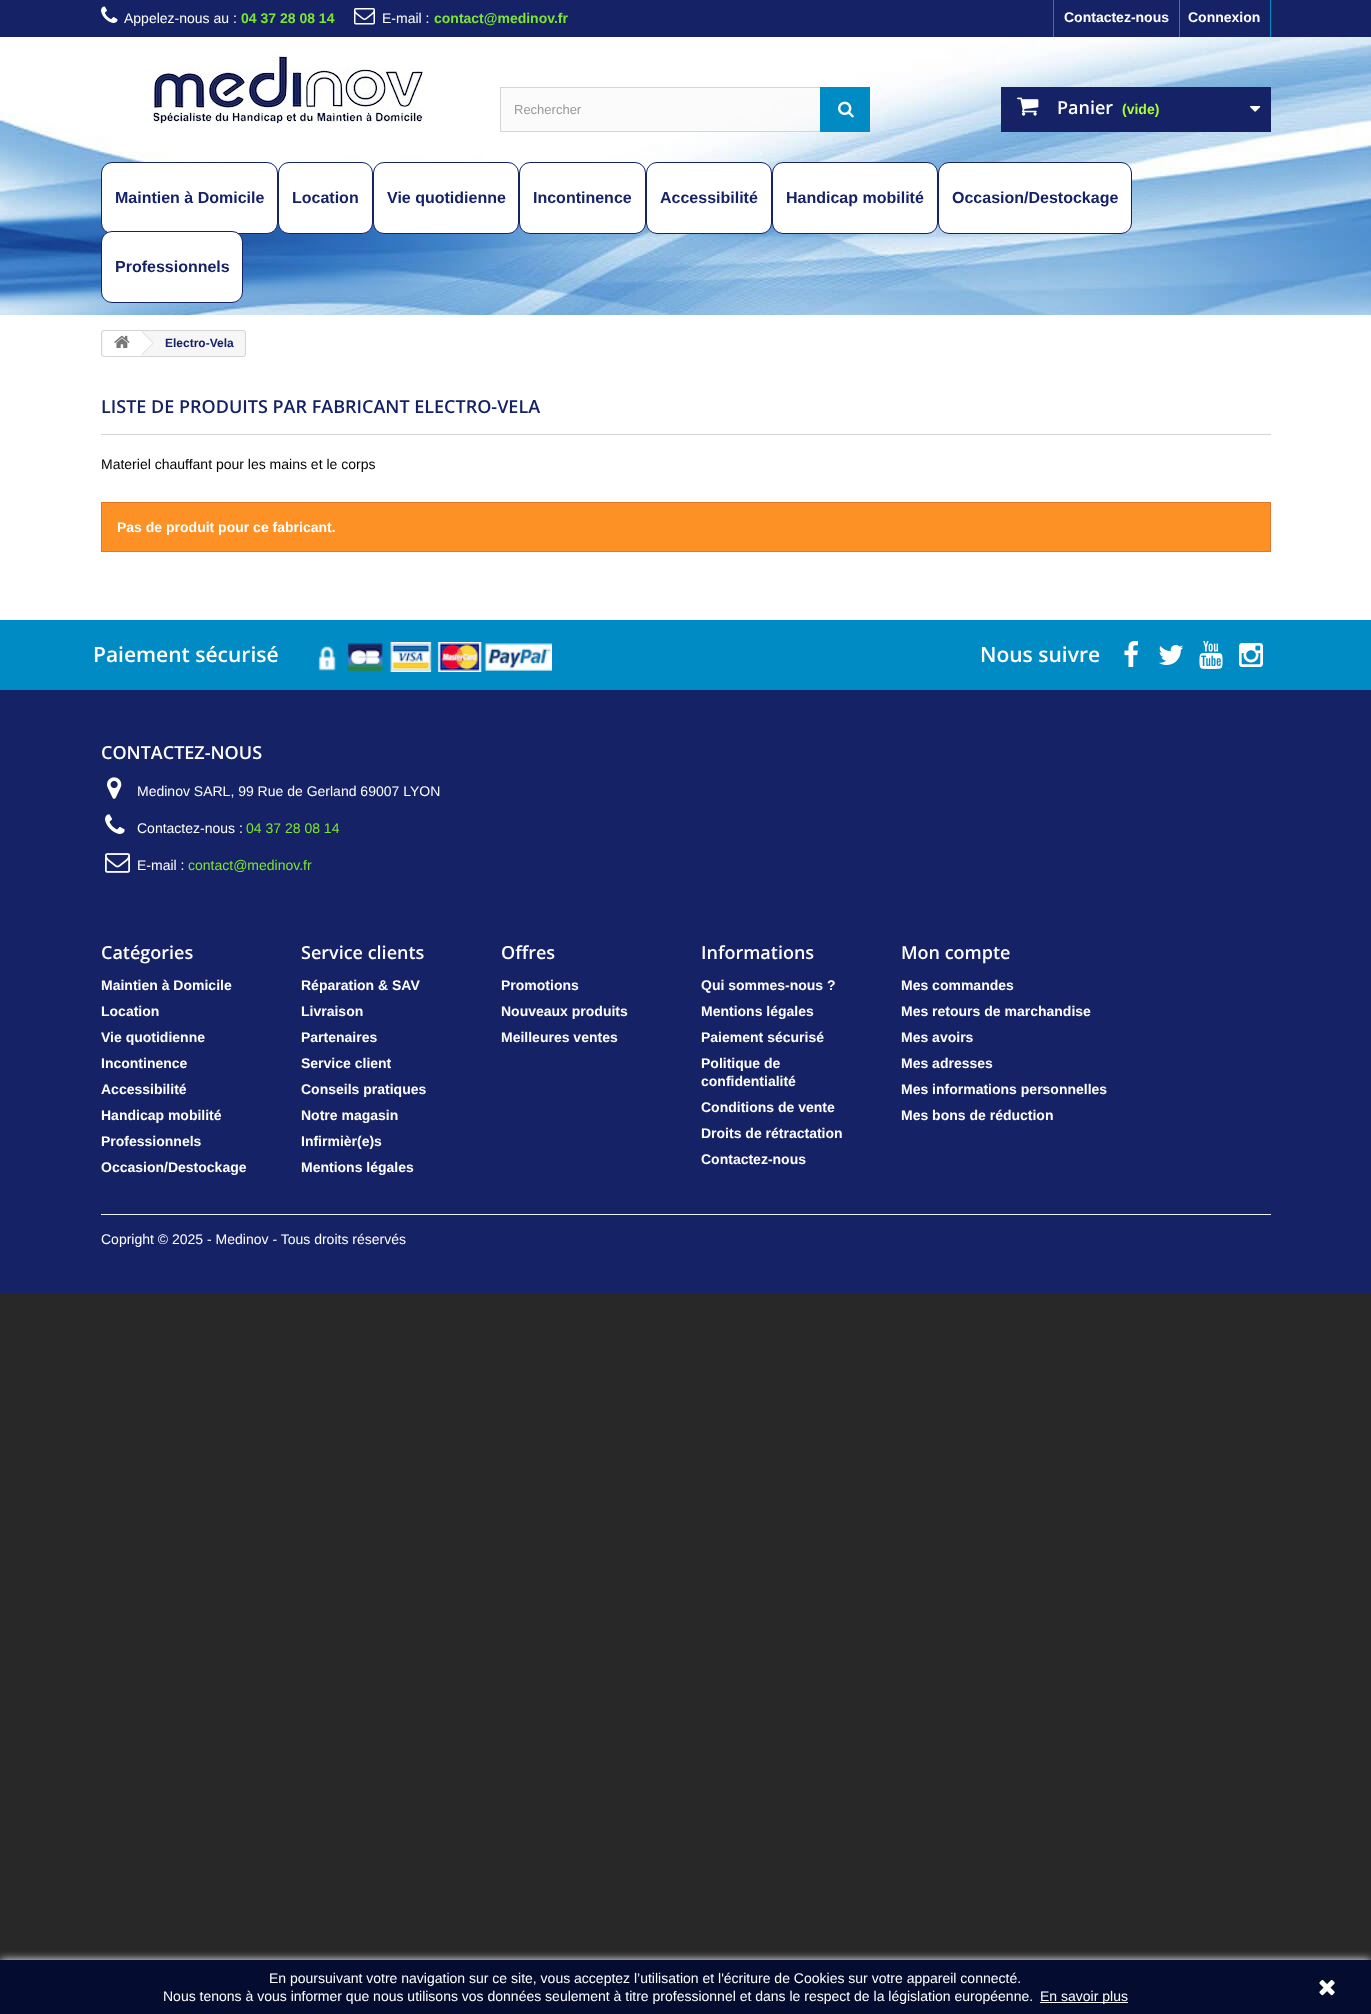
<?xml version="1.0" encoding="UTF-8"?>
<svg xmlns="http://www.w3.org/2000/svg" xmlns:xlink="http://www.w3.org/1999/xlink" width="1371" height="2014">
  <rect width="100%" height="100%" fill="#282828" />
  <rect y="315" width="1371" height="305" fill="#ffffff" />
  <image x="0" y="37" width="1371" height="278" xlink:href="image1.png" />
  <rect width="1371" height="37" fill="#152266" />
  <image x="101" y="6" width="17" height="17" xlink:href="image2.png" />
  <image x="354" y="8" width="21" height="17" xlink:href="image3.png" />
  <rect x="1053" width="1" height="37" fill="#008bc4" />
  <rect x="1270" width="1" height="37" fill="#008bc4" />
  <rect x="1179" width="1" height="37" fill="#008bc4" />
  <image x="152" y="52" width="272" height="76" xlink:href="image4.png" />
  <rect x="501" y="88" width="319" height="43" fill="#f8f8f8" fill-opacity="0.63" />
  <rect x="500.5" y="87.5" width="369" height="44" fill="none" stroke="#d6d4d4" />
  <rect x="820" y="87" width="50" height="45" fill="#008bc4" />
  <image x="838" y="101" width="16" height="17" xlink:href="image5.png" />
  <rect x="1001" y="87" width="270" height="45" fill="#152266" />
  <image x="1017" y="97" width="22" height="19" xlink:href="image6.png" />
  <image x="1250" y="106" width="11" height="6" xlink:href="image7.png" />
  <rect x="101.5" y="162.5" width="176" height="71" rx="10.5" fill="#ffffff" stroke="#152266" />
  <rect x="278.5" y="162.5" width="94" height="71" rx="10.5" fill="#ffffff" stroke="#152266" />
  <rect x="373.5" y="162.5" width="145" height="71" rx="10.5" fill="#ffffff" stroke="#152266" />
  <rect x="519.5" y="162.5" width="126" height="71" rx="10.5" fill="#ffffff" stroke="#152266" />
  <rect x="646.5" y="162.5" width="125" height="71" rx="10.5" fill="#ffffff" stroke="#152266" />
  <rect x="772.5" y="162.5" width="165" height="71" rx="10.5" fill="#ffffff" stroke="#152266" />
  <rect x="938.5" y="162.5" width="193" height="71" rx="10.5" fill="#ffffff" stroke="#152266" />
  <rect x="101.5" y="231.5" width="141" height="71" rx="10.5" fill="#ffffff" stroke="#152266" />
  <rect x="101.5" y="330.5" width="144" height="26" rx="2.5" fill="#f6f6f6" stroke="#d6d4d4" />
  <path d="M 106 331 h 35 v 25 h -35 c -1.5 0 -3 -1.5 -3 -3 v -19 c 0 -1.5 1.5 -3 3 -3 z" fill="#ffffff" />
  <path d="M 143 331.5 l 10 10 c 0.5 1 0.5 2 0 3 l -10 10 c -1 0.5 -2 0.5 -3 0 l -10 -10 c -0.5 -1 -0.5 -2 0 -3 l 10 -10 c 1 -0.5 2 -0.5 3 0 z" fill="#ffffff" />
  <image x="114" y="335" width="16" height="13" xlink:href="image8.png" />
  <path d="M 142 331 l 11.5 11.5 l -0.5 0.5 l -11.5 -11.5 z m 11 12 l 0.5 0.5 l -11.5 11.5 l -0.5 -0.5 z" fill="#d6d4d4" />
  <rect x="101" y="434" width="1170" height="1" fill="#d6d4d4" />
  <rect x="101.5" y="502.5" width="1169" height="49" fill="#fe9126" stroke="#e4752b" />
  <rect y="690" width="1371" height="603" fill="#152266" />
  <rect y="620" width="1371" height="70" fill="#008bc4" />
  <image x="318" y="642" width="234" height="30" xlink:href="image9.png" />
  <image x="1124" y="641" width="14" height="26" xlink:href="image10.png" />
  <image x="1158" y="645" width="26" height="20" xlink:href="image11.png" />
  <image x="1199" y="641" width="24" height="28" xlink:href="image12.png" />
  <image x="1239" y="643" width="24" height="24" xlink:href="image13.png" />
  <image x="107" y="777" width="15" height="22" xlink:href="image14.png" />
  <image x="105" y="814" width="20" height="20" xlink:href="image15.png" />
  <image x="105" y="853" width="25" height="20" xlink:href="image16.png" />
  <rect x="101" y="1214" width="1170" height="1" fill="#edf4f7" />
  <rect y="1960" width="1371" height="54" fill="#ffffff" filter="blur(5px)" />
  <rect y="1960" width="1371" height="54" fill="#040c30" />
  <rect x="1040" y="2002" width="88" height="1" fill="#ffffff" />
  <image x="1319" y="1980" width="16" height="16" xlink:href="image17.png" />
  <text x="124" y="23" style="font-family: Liberation Sans; font-size: 14px; fill: #ffffff">Appelez-nous au :</text>
  <text x="241" y="23" style="font-family: Liberation Sans; font-size: 14px; font-weight: bold; fill: #7de530">04 37 28 08 14</text>
  <text x="382" y="23" style="font-family: Liberation Sans; font-size: 14px; fill: #ffffff">E-mail :</text>
  <text x="434" y="23" style="font-family: Liberation Sans; font-size: 14px; font-weight: bold; fill: #7de530">contact@medinov.fr</text>
  <text x="1064" y="22" style="font-family: Liberation Sans; font-size: 14px; font-weight: bold; fill: #ffffff">Contactez-nous</text>
  <text x="1188" y="22" style="font-family: Liberation Sans; font-size: 14px; font-weight: bold; fill: #ffffff">Connexion</text>
  <text x="514" y="114" style="font-family: Liberation Sans; font-size: 13px; fill: #999999">Rechercher</text>
  <text x="1057" y="114" style="font-family: Open Sans; font-size: 18px; font-weight: 600; fill: #ffffff">Panier</text>
  <text x="1122" y="114" style="font-family: Liberation Sans; font-size: 14px; font-weight: bold; fill: #adff2e">(vide)</text>
  <text x="115" y="203" style="font-family: Liberation Sans; font-size: 16px; font-weight: bold; fill: #152266">Maintien à Domicile</text>
  <text x="292" y="203" style="font-family: Liberation Sans; font-size: 16px; font-weight: bold; fill: #152266">Location</text>
  <text x="387" y="203" style="font-family: Liberation Sans; font-size: 16px; font-weight: bold; fill: #152266">Vie quotidienne</text>
  <text x="533" y="203" style="font-family: Liberation Sans; font-size: 16px; font-weight: bold; fill: #152266">Incontinence</text>
  <text x="660" y="203" style="font-family: Liberation Sans; font-size: 16px; font-weight: bold; fill: #152266">Accessibilité</text>
  <text x="786" y="203" style="font-family: Liberation Sans; font-size: 16px; font-weight: bold; fill: #152266">Handicap mobilité</text>
  <text x="952" y="203" style="font-family: Liberation Sans; font-size: 16px; font-weight: bold; fill: #152266">Occasion/Destockage</text>
  <text x="115" y="272" style="font-family: Liberation Sans; font-size: 16px; font-weight: bold; fill: #152266">Professionnels</text>
  <text x="165" y="347" style="font-family: Liberation Sans; font-size: 12px; font-weight: bold; fill: #152266">Electro-Vela</text>
  <text x="101" y="413" style="font-family: Open Sans; font-size: 18px; font-weight: 600; fill: #152266">LISTE DE PRODUITS PAR FABRICANT ELECTRO-VELA</text>
  <text x="101" y="469" style="font-family: Liberation Sans; font-size: 14px; fill: #000000">Materiel chauffant pour les mains et le corps</text>
  <text x="117" y="532" style="font-family: Liberation Sans; font-size: 14px; font-weight: bold; fill: #ffffff">Pas de produit pour ce fabricant.</text>
  <text x="93" y="662" style="font-family: Open Sans; font-size: 21px; font-weight: 600; fill: #ffffff">Paiement sécurisé</text>
  <text x="980" y="662" style="font-family: Open Sans; font-size: 21px; font-weight: 600; fill: #ffffff">Nous suivre</text>
  <text x="101" y="759" style="font-family: Open Sans; font-size: 18px; font-weight: 600; fill: #ffffff">CONTACTEZ-NOUS</text>
  <text x="137" y="796" style="font-family: Liberation Sans; font-size: 14px; fill: #ffffff">Medinov SARL, 99 Rue de Gerland 69007 LYON</text>
  <text x="137" y="833" style="font-family: Liberation Sans; font-size: 14px; fill: #ffffff">Contactez-nous :</text>
  <text x="246" y="833" style="font-family: Liberation Sans; font-size: 14px; fill: #7de530">04 37 28 08 14</text>
  <text x="137" y="870" style="font-family: Liberation Sans; font-size: 14px; fill: #ffffff">E-mail :</text>
  <text x="188" y="870" style="font-family: Liberation Sans; font-size: 14px; fill: #7de530">contact@medinov.fr</text>
  <text x="101" y="959" style="font-family: Open Sans; font-size: 18px; font-weight: 600; fill: #ffffff">Catégories</text>
  <text x="101" y="990" style="font-family: Liberation Sans; font-size: 14px; font-weight: bold; fill: #ffffff">Maintien à Domicile</text>
  <text x="101" y="1016" style="font-family: Liberation Sans; font-size: 14px; font-weight: bold; fill: #ffffff">Location</text>
  <text x="101" y="1042" style="font-family: Liberation Sans; font-size: 14px; font-weight: bold; fill: #ffffff">Vie quotidienne</text>
  <text x="101" y="1068" style="font-family: Liberation Sans; font-size: 14px; font-weight: bold; fill: #ffffff">Incontinence</text>
  <text x="101" y="1094" style="font-family: Liberation Sans; font-size: 14px; font-weight: bold; fill: #ffffff">Accessibilité</text>
  <text x="101" y="1120" style="font-family: Liberation Sans; font-size: 14px; font-weight: bold; fill: #ffffff">Handicap mobilité</text>
  <text x="101" y="1146" style="font-family: Liberation Sans; font-size: 14px; font-weight: bold; fill: #ffffff">Professionnels</text>
  <text x="101" y="1172" style="font-family: Liberation Sans; font-size: 14px; font-weight: bold; fill: #ffffff">Occasion/Destockage</text>
  <text x="301" y="959" style="font-family: Open Sans; font-size: 18px; font-weight: 600; fill: #ffffff">Service clients</text>
  <text x="301" y="990" style="font-family: Liberation Sans; font-size: 14px; font-weight: bold; fill: #ffffff">Réparation &amp; SAV</text>
  <text x="301" y="1016" style="font-family: Liberation Sans; font-size: 14px; font-weight: bold; fill: #ffffff">Livraison</text>
  <text x="301" y="1042" style="font-family: Liberation Sans; font-size: 14px; font-weight: bold; fill: #ffffff">Partenaires</text>
  <text x="301" y="1068" style="font-family: Liberation Sans; font-size: 14px; font-weight: bold; fill: #ffffff">Service client</text>
  <text x="301" y="1094" style="font-family: Liberation Sans; font-size: 14px; font-weight: bold; fill: #ffffff">Conseils pratiques</text>
  <text x="301" y="1120" style="font-family: Liberation Sans; font-size: 14px; font-weight: bold; fill: #ffffff">Notre magasin</text>
  <text x="301" y="1146" style="font-family: Liberation Sans; font-size: 14px; font-weight: bold; fill: #ffffff">Infirmièr(e)s</text>
  <text x="301" y="1172" style="font-family: Liberation Sans; font-size: 14px; font-weight: bold; fill: #ffffff">Mentions légales</text>
  <text x="501" y="959" style="font-family: Open Sans; font-size: 18px; font-weight: 600; fill: #ffffff">Offres</text>
  <text x="501" y="990" style="font-family: Liberation Sans; font-size: 14px; font-weight: bold; fill: #ffffff">Promotions</text>
  <text x="501" y="1016" style="font-family: Liberation Sans; font-size: 14px; font-weight: bold; fill: #ffffff">Nouveaux produits</text>
  <text x="501" y="1042" style="font-family: Liberation Sans; font-size: 14px; font-weight: bold; fill: #ffffff">Meilleures ventes</text>
  <text x="701" y="959" style="font-family: Open Sans; font-size: 18px; font-weight: 600; fill: #ffffff">Informations</text>
  <text x="701" y="990" style="font-family: Liberation Sans; font-size: 14px; font-weight: bold; fill: #ffffff">Qui sommes-nous ?</text>
  <text x="701" y="1016" style="font-family: Liberation Sans; font-size: 14px; font-weight: bold; fill: #ffffff">Mentions légales</text>
  <text x="701" y="1042" style="font-family: Liberation Sans; font-size: 14px; font-weight: bold; fill: #ffffff">Paiement sécurisé</text>
  <text x="701" y="1068" style="font-family: Liberation Sans; font-size: 14px; font-weight: bold; fill: #ffffff">Politique de</text>
  <text x="701" y="1086" style="font-family: Liberation Sans; font-size: 14px; font-weight: bold; fill: #ffffff">confidentialité</text>
  <text x="701" y="1112" style="font-family: Liberation Sans; font-size: 14px; font-weight: bold; fill: #ffffff">Conditions de vente</text>
  <text x="701" y="1138" style="font-family: Liberation Sans; font-size: 14px; font-weight: bold; fill: #ffffff">Droits de rétractation</text>
  <text x="701" y="1164" style="font-family: Liberation Sans; font-size: 14px; font-weight: bold; fill: #ffffff">Contactez-nous</text>
  <text x="901" y="959" style="font-family: Open Sans; font-size: 18px; font-weight: 600; fill: #ffffff">Mon compte</text>
  <text x="901" y="990" style="font-family: Liberation Sans; font-size: 14px; font-weight: bold; fill: #ffffff">Mes commandes</text>
  <text x="901" y="1016" style="font-family: Liberation Sans; font-size: 14px; font-weight: bold; fill: #ffffff">Mes retours de marchandise</text>
  <text x="901" y="1042" style="font-family: Liberation Sans; font-size: 14px; font-weight: bold; fill: #ffffff">Mes avoirs</text>
  <text x="901" y="1068" style="font-family: Liberation Sans; font-size: 14px; font-weight: bold; fill: #ffffff">Mes adresses</text>
  <text x="901" y="1094" style="font-family: Liberation Sans; font-size: 14px; font-weight: bold; fill: #ffffff">Mes informations personnelles</text>
  <text x="901" y="1120" style="font-family: Liberation Sans; font-size: 14px; font-weight: bold; fill: #ffffff">Mes bons de réduction</text>
  <text x="101" y="1244" style="font-family: Liberation Sans; font-size: 14px; fill: #ffffff">Copright © 2025 - Medinov - Tous droits réservés</text>
  <text x="269" y="1983" style="font-family: Liberation Sans; font-size: 14px; fill: #ffffff">En poursuivant votre navigation sur ce site, vous acceptez l’utilisation et l'écriture de Cookies sur votre appareil connecté.</text>
  <text x="163" y="2001" style="font-family: Liberation Sans; font-size: 14px; fill: #ffffff">Nous tenons à vous informer que nous utilisons vos données seulement à titre professionnel et dans le respect de la législation européenne.</text>
  <text x="1040" y="2001" style="font-family: Liberation Sans; font-size: 14px; fill: #ffffff">En savoir plus</text>
</svg>
